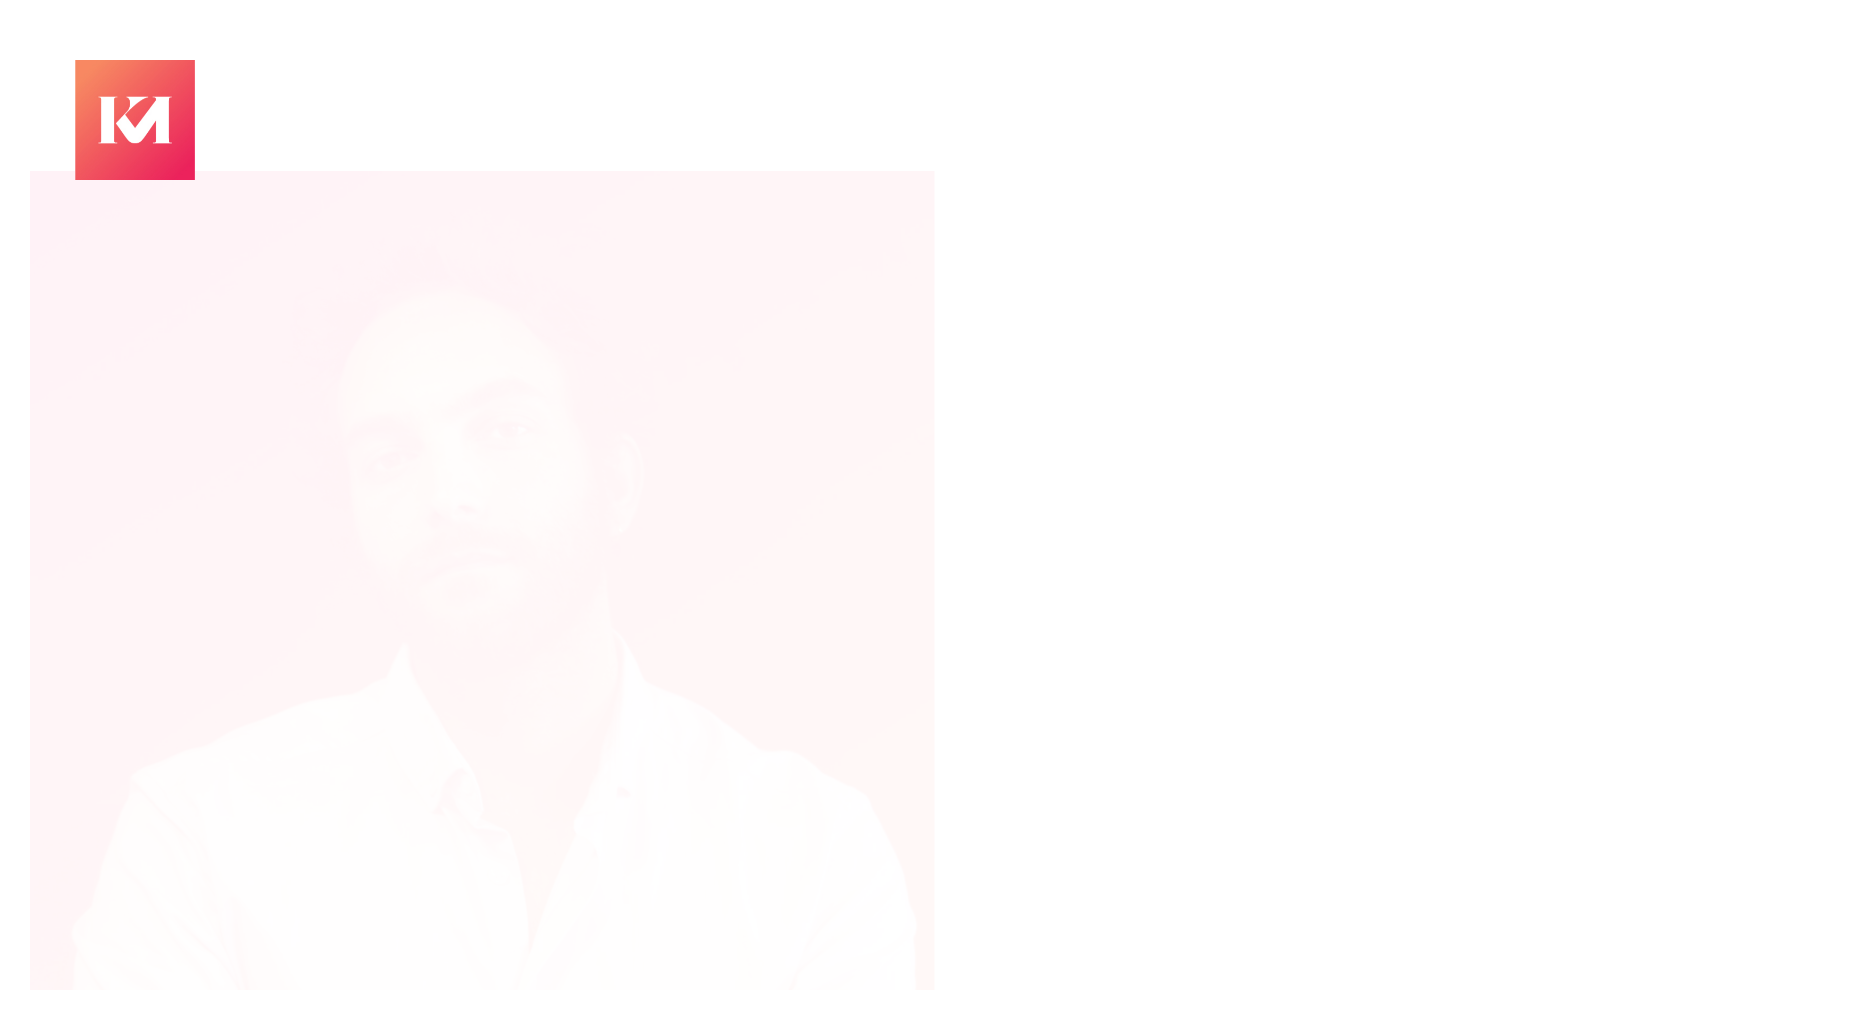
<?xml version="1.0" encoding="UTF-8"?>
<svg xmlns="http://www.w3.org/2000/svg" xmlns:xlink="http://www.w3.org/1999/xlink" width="1868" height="1019">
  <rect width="100%" height="100%" fill="#ffffff" />
  <image x="30" y="171" width="905" height="819" xlink:href="image2.png" />
  <image x="75" y="60" width="120" height="120" xlink:href="image1.png" />
</svg>
